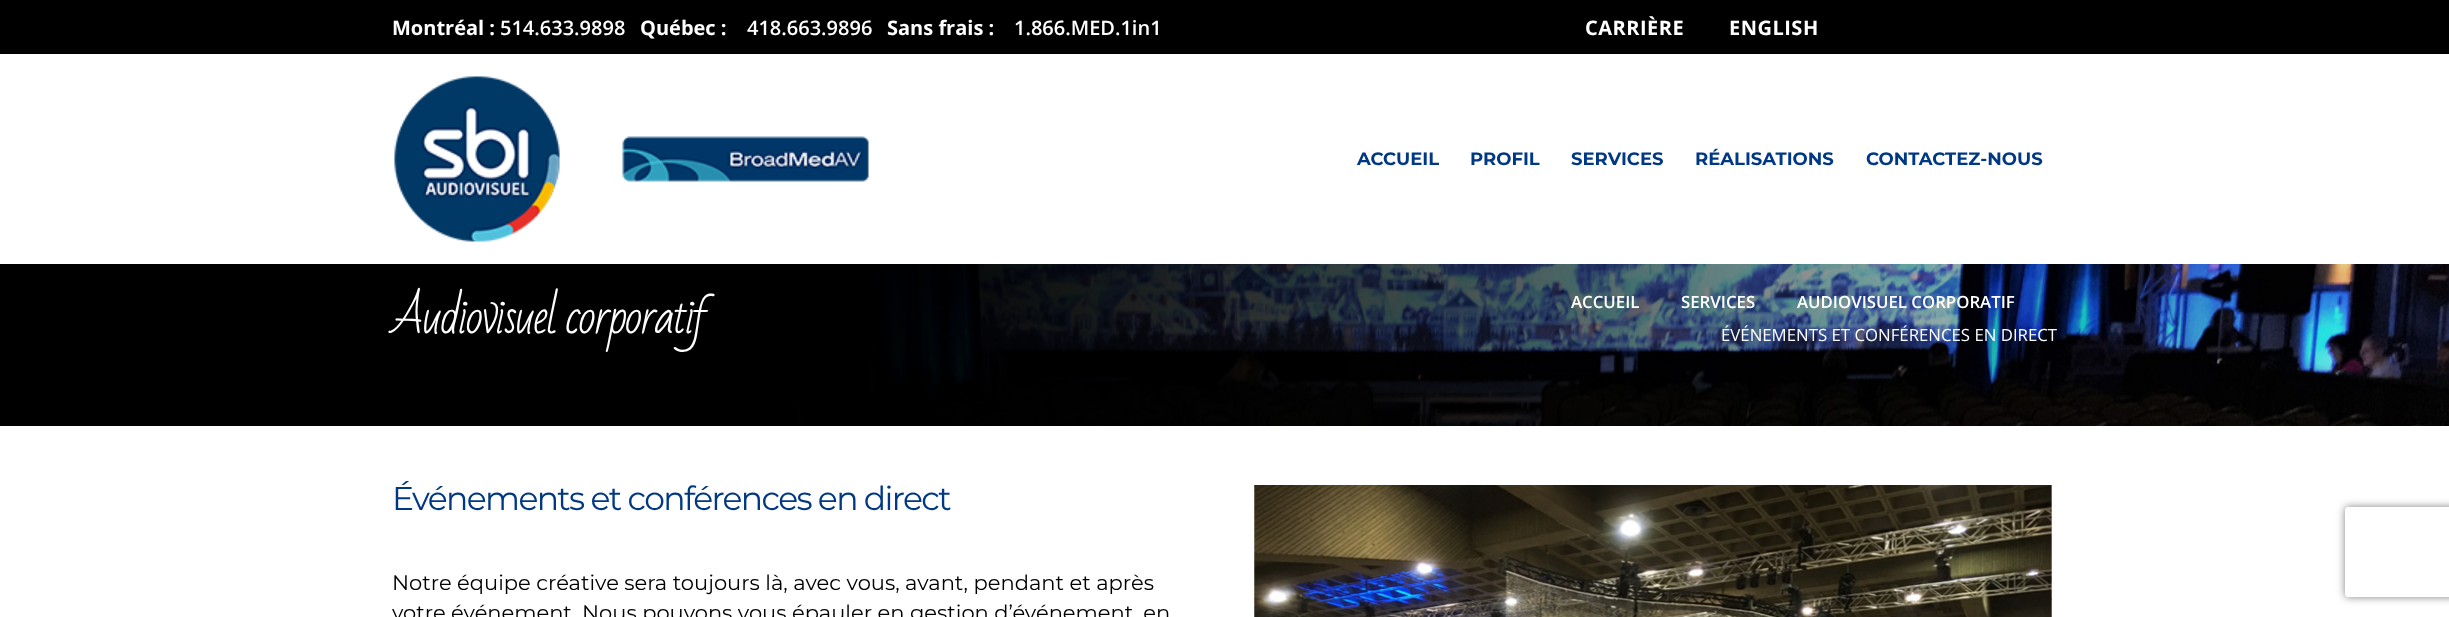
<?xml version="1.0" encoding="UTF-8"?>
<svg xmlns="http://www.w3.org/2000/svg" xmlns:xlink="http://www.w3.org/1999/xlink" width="2449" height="617">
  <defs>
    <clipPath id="clip1"><path d="M 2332 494 h 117 v 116 h -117 z m 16 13 h 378 c 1.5 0 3 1.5 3 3 v 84 c 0 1.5 -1.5 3 -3 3 h -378 c -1.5 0 -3 -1.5 -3 -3 v -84 c 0 -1.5 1.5 -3 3 -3 z" clip-rule="evenodd" /></clipPath>
  </defs>
  <rect width="100%" height="100%" fill="#ffffff" />
  <rect width="2449" height="54" fill="#000000" />
  <image x="394" y="76" width="475" height="166" xlink:href="image1.png" />
  <image x="0" y="264" width="805" height="162" xlink:href="image2.png" />
  <image x="805" y="264" width="1644" height="162" xlink:href="image3.png" />
  <image x="1254" y="485" width="798" height="132" xlink:href="image4.png" />
  <image x="2051" y="485" width="1" height="132" xlink:href="image5.png" />
  <g clip-path="url(#clip1)">
    <rect x="2345" y="507" width="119" height="90" rx="3" fill="#808080" filter="blur(4px)" />
  </g>
  <text x="392" y="35" style="font-family: Open Sans; font-size: 20px; font-weight: bold; fill: #ffffff">Montréal :</text>
  <text x="500" y="35" style="font-family: Open Sans; font-size: 20px; font-weight: 600; fill: #ffffff">514.633.9898</text>
  <text x="640" y="35" style="font-family: Open Sans; font-size: 20px; font-weight: bold; fill: #ffffff">Québec :</text>
  <text x="747" y="35" style="font-family: Open Sans; font-size: 20px; font-weight: 600; fill: #ffffff">418.663.9896</text>
  <text x="887" y="35" style="font-family: Open Sans; font-size: 20px; font-weight: bold; fill: #ffffff">Sans frais :</text>
  <text x="1014" y="35" style="font-family: Open Sans; font-size: 20px; font-weight: 600; fill: #ffffff">1.866.MED.1in1</text>
  <text x="1585" y="35" style="font-family: Open Sans; font-size: 20px; font-weight: bold; letter-spacing: 0.5px; fill: #ffffff">CARRIÈRE</text>
  <text x="1729" y="35" style="font-family: Open Sans; font-size: 20px; font-weight: bold; letter-spacing: 0.5px; fill: #ffffff">ENGLISH</text>
  <text x="1357" y="165" style="font-family: Montserrat; font-size: 18px; font-weight: bold; fill: #003883">ACCUEIL</text>
  <text x="1470" y="165" style="font-family: Montserrat; font-size: 18px; font-weight: bold; fill: #003883">PROFIL</text>
  <text x="1571" y="165" style="font-family: Montserrat; font-size: 18px; font-weight: bold; fill: #003883">SERVICES</text>
  <text x="1695" y="165" style="font-family: Montserrat; font-size: 18px; font-weight: bold; fill: #003883">RÉALISATIONS</text>
  <text x="1866" y="165" style="font-family: Montserrat; font-size: 18px; font-weight: bold; fill: #003883">CONTACTEZ-NOUS</text>
  <text x="392" y="333" style="font-family: Bad Script; font-size: 46.25px; letter-spacing: -2.3px; fill: #ffffff">Audiovisuel corporatif</text>
  <text x="1571" y="308" style="font-family: Open Sans; font-size: 16.8px; font-weight: 600; fill: #ffffff">ACCUEIL</text>
  <text x="1681" y="308" style="font-family: Open Sans; font-size: 16.8px; font-weight: 600; fill: #ffffff">SERVICES</text>
  <text x="1797" y="308" style="font-family: Open Sans; font-size: 16.8px; font-weight: 600; fill: #ffffff">AUDIOVISUEL CORPORATIF</text>
  <text x="1721" y="341" style="font-family: Open Sans; font-size: 16.8px; fill: #ffffff">ÉVÉNEMENTS ET CONFÉRENCES EN DIRECT</text>
  <text x="392" y="510" style="font-family: Montserrat; font-size: 33px; letter-spacing: -1.65px; fill: #003883">Événements et conférences en direct</text>
  <text x="392" y="590" style="font-family: Montserrat; font-size: 21px; fill: #000000">Notre équipe créative sera toujours là, avec vous, avant, pendant et après</text>
  <text x="392" y="620" style="font-family: Montserrat; font-size: 21px; fill: #000000">votre événement. Nous pouvons vous épauler en gestion d’événement, en</text>
</svg>
